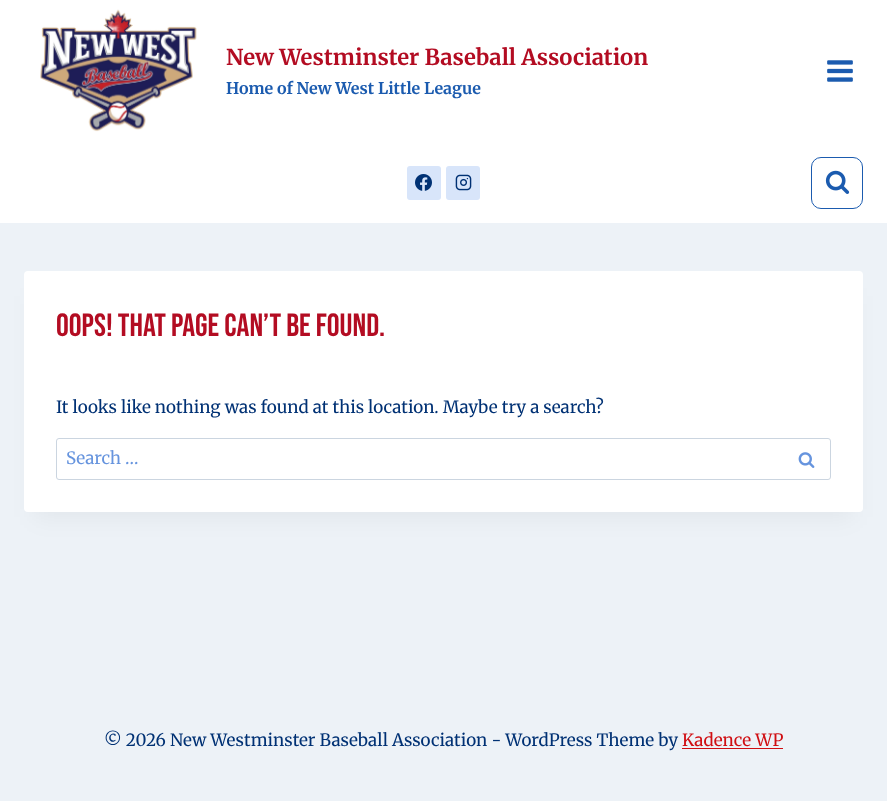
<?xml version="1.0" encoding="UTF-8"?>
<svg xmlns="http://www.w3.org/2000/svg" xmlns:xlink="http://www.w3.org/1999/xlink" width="887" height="801">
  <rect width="100%" height="100%" fill="#edf2f7" />
  <rect width="887" height="223" fill="#ffffff" />
  <image x="40" y="9" width="157" height="123" xlink:href="image1.png" />
  <image x="827" y="60" width="26" height="22" xlink:href="image2.png" />
  <rect x="407" y="166" width="34" height="34" rx="3" fill="#d8e5fa" />
  <image x="415" y="174" width="17" height="17" xlink:href="image3.png" />
  <rect x="446" y="166" width="34" height="34" rx="3" fill="#d8e5fa" />
  <image x="455" y="174" width="17" height="17" xlink:href="image4.png" />
  <rect x="811.5" y="157.5" width="51" height="51" rx="9.5" fill="none" stroke="#1b5baf" />
  <image x="825" y="170" width="25" height="24" xlink:href="image5.png" />
  <rect x="34" y="296" width="819" height="221" fill="#000000" fill-opacity="0.05" filter="blur(12.5px)" />
  <rect x="24" y="271" width="839" height="241" rx="4" fill="#ffffff" />
  <rect x="56.5" y="438.5" width="774" height="41" rx="2.5" fill="none" stroke="#cbd5e0" />
  <image x="798" y="452" width="17" height="16" xlink:href="image6.png" />
  <rect x="682" y="748" width="101" height="1" fill="#d00e12" />
  <text x="226" y="65" style="font-family: Merriweather; font-size: 22px; font-weight: bold; fill: #b30c22">New Westminster Baseball Association</text>
  <text x="226" y="94" style="font-family: Merriweather; font-size: 16px; font-weight: bold; fill: #1b5baf">Home of New West Little League</text>
  <text x="56" y="336" style="font-family: Bebas Neue; font-size: 32px; fill: #b30c22">Oops! That page can’t be found.</text>
  <text x="56" y="413" style="font-family: Merriweather; font-size: 17px; fill: #003174">It looks like nothing was found at this location. Maybe try a search?</text>
  <text x="66" y="464" style="font-family: Merriweather; font-size: 17px; fill: #6694de">Search …</text>
  <text x="104" y="746" style="font-family: Merriweather; font-size: 17px; fill: #003174">© 2026 New Westminster Baseball Association - WordPress Theme by</text>
  <text x="682" y="746" style="font-family: Merriweather; font-size: 17px; fill: #d00e12">Kadence WP</text>
</svg>
